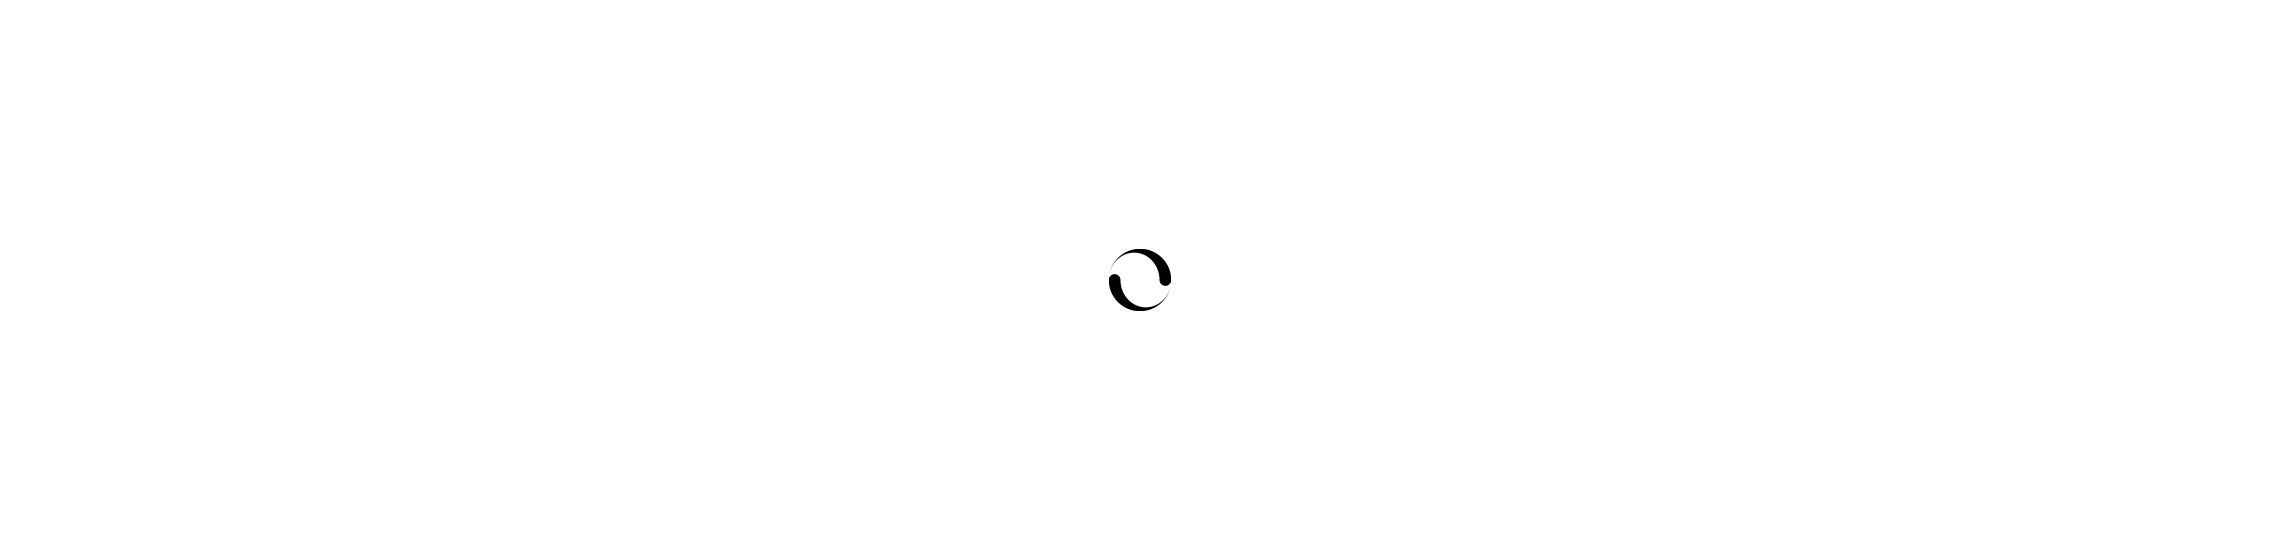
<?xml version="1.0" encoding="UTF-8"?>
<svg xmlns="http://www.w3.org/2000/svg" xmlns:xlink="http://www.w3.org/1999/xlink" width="2279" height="558">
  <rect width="100%" height="100%" fill="#ffffff" />
  <image x="1109" y="249" width="62" height="62" xlink:href="image1.png" />
</svg>
